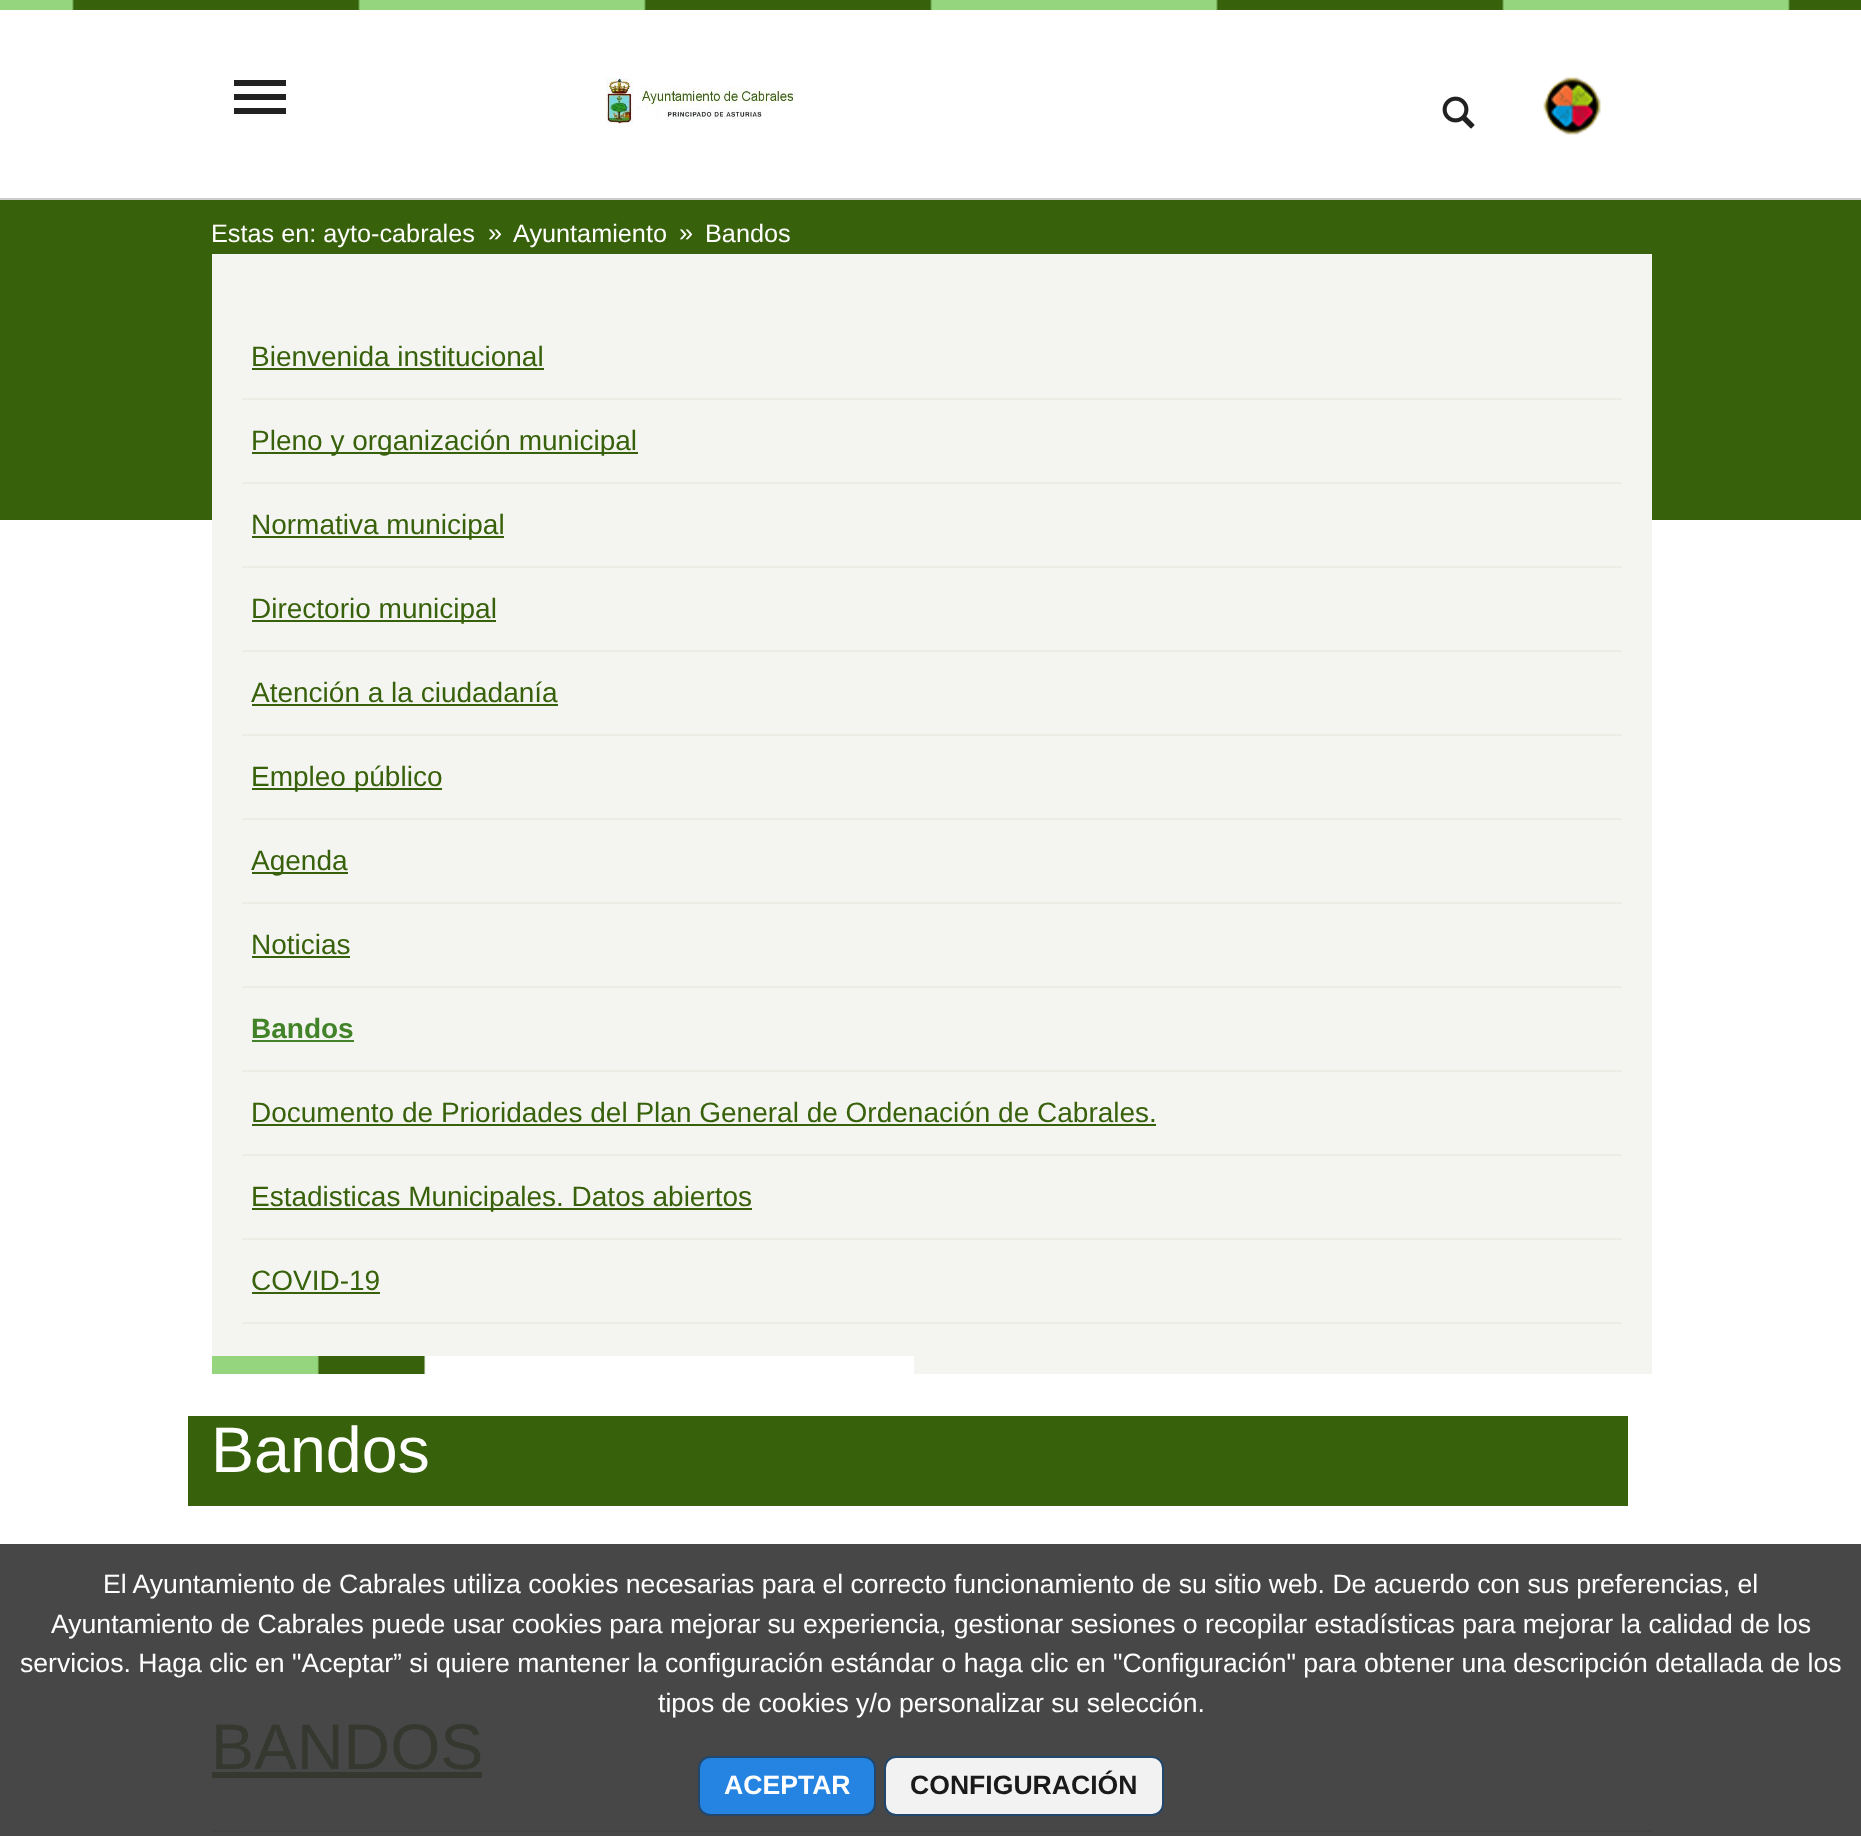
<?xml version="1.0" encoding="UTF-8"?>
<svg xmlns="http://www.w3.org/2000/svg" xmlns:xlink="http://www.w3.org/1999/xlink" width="1861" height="1836">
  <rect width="100%" height="100%" fill="#ffffff" />
  <rect y="1544" width="1861" height="292" fill="#474747" />
  <image x="0" y="0" width="1861" height="10" xlink:href="image1.png" />
  <rect y="198" width="1861" height="2" fill="#cccccc" />
  <rect x="234" y="80" width="52" height="6" fill="#212121" />
  <rect x="234" y="94" width="52" height="6" fill="#212121" />
  <rect x="234" y="108" width="52" height="6" fill="#212121" />
  <image x="606" y="78" width="190" height="46" xlink:href="image2.png" />
  <image x="1442" y="96" width="33" height="33" xlink:href="image3.png" />
  <image x="1543" y="77" width="58" height="58" xlink:href="image4.png" />
  <rect y="200" width="1861" height="320" fill="#38610b" />
  <rect x="212" y="254" width="1440" height="1120" fill="#f4f4f0" />
  <image x="212" y="1356" width="702" height="18" xlink:href="image5.png" />
  <rect x="242" y="398" width="1380" height="2" fill="#ecece5" />
  <rect x="252" y="368" width="292" height="2" fill="#38610b" />
  <rect x="242" y="482" width="1380" height="2" fill="#ecece5" />
  <rect x="252" y="452" width="386" height="2" fill="#38610b" />
  <rect x="242" y="566" width="1380" height="2" fill="#ecece5" />
  <rect x="252" y="536" width="252" height="2" fill="#38610b" />
  <rect x="242" y="650" width="1380" height="2" fill="#ecece5" />
  <rect x="252" y="620" width="244" height="2" fill="#38610b" />
  <rect x="242" y="734" width="1380" height="2" fill="#ecece5" />
  <rect x="252" y="704" width="306" height="2" fill="#38610b" />
  <rect x="242" y="818" width="1380" height="2" fill="#ecece5" />
  <rect x="252" y="788" width="190" height="2" fill="#38610b" />
  <rect x="242" y="902" width="1380" height="2" fill="#ecece5" />
  <rect x="252" y="872" width="96" height="2" fill="#38610b" />
  <rect x="242" y="986" width="1380" height="2" fill="#ecece5" />
  <rect x="252" y="956" width="98" height="2" fill="#38610b" />
  <rect x="242" y="1070" width="1380" height="2" fill="#ecece5" />
  <rect x="252" y="1040" width="102" height="2" fill="#42832a" />
  <rect x="242" y="1154" width="1380" height="2" fill="#ecece5" />
  <rect x="252" y="1124" width="904" height="2" fill="#38610b" />
  <rect x="242" y="1238" width="1380" height="2" fill="#ecece5" />
  <rect x="252" y="1208" width="500" height="2" fill="#38610b" />
  <rect x="242" y="1322" width="1380" height="2" fill="#ecece5" />
  <rect x="252" y="1292" width="128" height="2" fill="#38610b" />
  <rect x="188" y="1416" width="1440" height="90" fill="#38610b" />
  <rect x="212" y="1772" width="270" height="6" fill="#34382f" />
  <rect x="212" y="1830" width="1440" height="2" fill="#424344" />
  <rect x="699" y="1757" width="176" height="58" rx="11" fill="#2583e1" stroke="#21476d" stroke-width="2" />
  <rect x="885" y="1757" width="278" height="58" rx="11" fill="#f2f2f2" stroke="#21476d" stroke-width="2" />
  <text x="211" y="242" style="font-family: Liberation Sans; font-size: 25.25px; fill: #ffffff">Estas en: ayto-cabrales</text>
  <text x="488" y="241" style="font-family: Liberation Sans; font-size: 25.25px; fill: #ffffff">»</text>
  <text x="513" y="242" style="font-family: Liberation Sans; font-size: 25.25px; fill: #ffffff">Ayuntamiento</text>
  <text x="679" y="241" style="font-family: Liberation Sans; font-size: 25.25px; fill: #ffffff">»</text>
  <text x="705" y="242" style="font-family: Liberation Sans; font-size: 25.25px; fill: #ffffff">Bandos</text>
  <text x="251" y="366" style="font-family: Liberation Sans; font-size: 28px; fill: #38610b">Bienvenida institucional</text>
  <text x="251" y="450" style="font-family: Liberation Sans; font-size: 28px; fill: #38610b">Pleno y organización municipal</text>
  <text x="251" y="534" style="font-family: Liberation Sans; font-size: 28px; fill: #38610b">Normativa municipal</text>
  <text x="251" y="618" style="font-family: Liberation Sans; font-size: 28px; fill: #38610b">Directorio municipal</text>
  <text x="251" y="702" style="font-family: Liberation Sans; font-size: 28px; fill: #38610b">Atención a la ciudadanía</text>
  <text x="251" y="786" style="font-family: Liberation Sans; font-size: 28px; fill: #38610b">Empleo público</text>
  <text x="251" y="870" style="font-family: Liberation Sans; font-size: 28px; fill: #38610b">Agenda</text>
  <text x="251" y="954" style="font-family: Liberation Sans; font-size: 28px; fill: #38610b">Noticias</text>
  <text x="251" y="1038" style="font-family: Liberation Sans; font-size: 28px; font-weight: bold; fill: #42832a">Bandos</text>
  <text x="251" y="1122" style="font-family: Liberation Sans; font-size: 28px; fill: #38610b">Documento de Prioridades del Plan General de Ordenación de Cabrales.</text>
  <text x="251" y="1206" style="font-family: Liberation Sans; font-size: 28px; fill: #38610b">Estadisticas Municipales. Datos abiertos</text>
  <text x="251" y="1290" style="font-family: Liberation Sans; font-size: 28px; fill: #38610b">COVID-19</text>
  <text x="211" y="1472" style="font-family: Liberation Sans; font-size: 64.5px; fill: #ffffff">Bandos</text>
  <text x="211" y="1769" style="font-family: Liberation Sans; font-size: 64.5px; fill: #34382f">BANDOS</text>
  <text x="103" y="1593" style="font-family: Liberation Sans; font-size: 26.6px; fill: #ffffff">El Ayuntamiento de Cabrales utiliza cookies necesarias para el correcto funcionamiento de su sitio web. De acuerdo con sus preferencias, el</text>
  <text x="51" y="1633" style="font-family: Liberation Sans; font-size: 26.6px; fill: #ffffff">Ayuntamiento de Cabrales puede usar cookies para mejorar su experiencia, gestionar sesiones o recopilar estadísticas para mejorar la calidad de los</text>
  <text x="20" y="1672" style="font-family: Liberation Sans; font-size: 26.6px; fill: #ffffff">servicios. Haga clic en "Aceptar” si quiere mantener la configuración estándar o haga clic en "Configuración" para obtener una descripción detallada de los</text>
  <text x="658" y="1712" style="font-family: Liberation Sans; font-size: 26.6px; fill: #ffffff">tipos de cookies y/o personalizar su selección.</text>
  <text x="724" y="1794" style="font-family: Liberation Sans; font-size: 26.6px; font-weight: bold; fill: #ffffff">ACEPTAR</text>
  <text x="910" y="1794" style="font-family: Liberation Sans; font-size: 26.6px; font-weight: bold; fill: #1a1a1a">CONFIGURACIÓN</text>
</svg>
